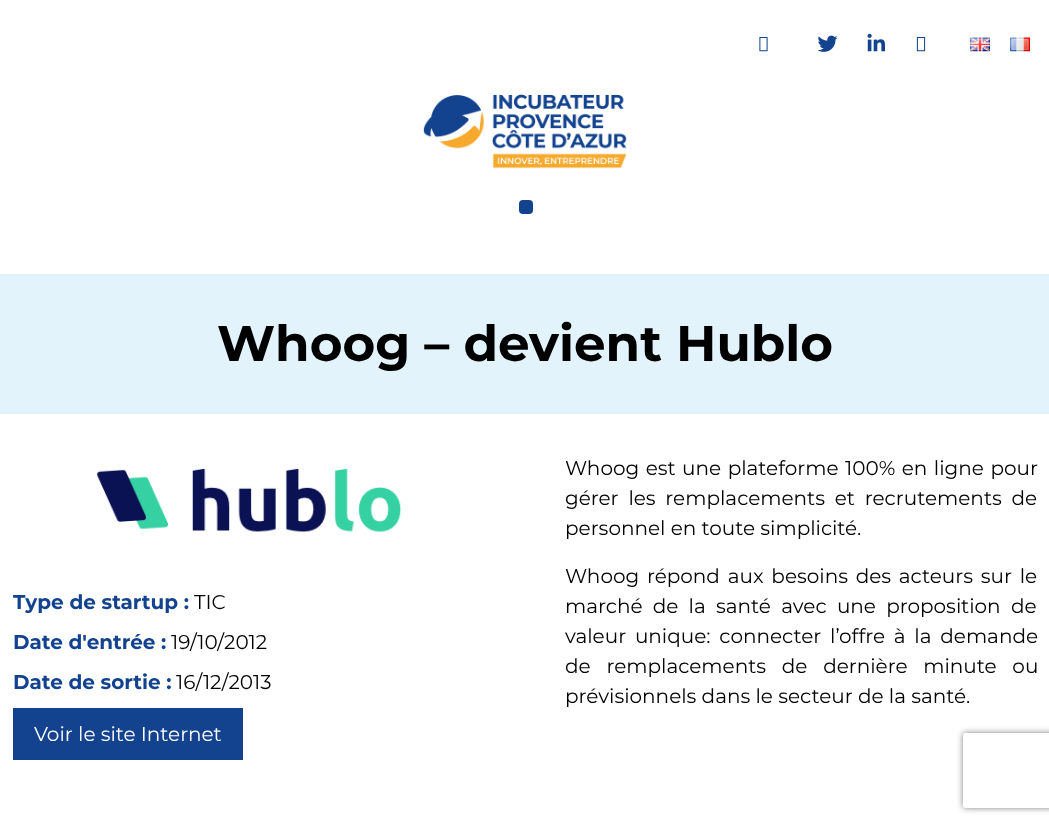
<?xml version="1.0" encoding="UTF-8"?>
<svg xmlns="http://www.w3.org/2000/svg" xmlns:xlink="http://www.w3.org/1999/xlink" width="1049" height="825">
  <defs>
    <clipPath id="clip1"><path d="M 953 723 h 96 v 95 h -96 z m 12.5 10 h 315 c 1.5 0 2.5 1 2.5 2.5 v 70 c 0 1.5 -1 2.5 -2.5 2.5 h -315 c -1.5 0 -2.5 -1 -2.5 -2.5 v -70 c 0 -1.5 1 -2.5 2.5 -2.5 z" clip-rule="evenodd" /></clipPath>
  </defs>
  <rect width="100%" height="100%" fill="#ffffff" />
  <image x="759" y="36" width="9" height="16" xlink:href="image1.png" />
  <image x="817" y="35" width="21" height="17" xlink:href="image2.png" />
  <image x="867" y="33" width="18" height="19" xlink:href="image3.png" />
  <image x="916" y="36" width="10" height="16" xlink:href="image4.png" />
  <image x="970" y="37" width="20" height="15" xlink:href="image5.png" />
  <image x="1010" y="37" width="20" height="15" xlink:href="image6.png" />
  <image x="423" y="94" width="204" height="75" xlink:href="image7.png" />
  <rect x="519" y="200" width="14" height="14" rx="4" fill="#13438f" />
  <rect y="274" width="1049" height="140" fill="#e3f3fb" />
  <image x="96" y="468" width="306" height="65" xlink:href="image8.png" />
  <rect x="13" y="708" width="230" height="52" fill="#13438f" />
  <g clip-path="url(#clip1)">
    <rect x="963" y="733" width="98" height="75" rx="2.5" fill="#808080" filter="blur(3px)" />
  </g>
  <text x="217" y="361" style="font-family: Montserrat; font-size: 50px; font-weight: bold; fill: #000000">Whoog – devient Hublo</text>
  <text x="13" y="609" style="font-family: Montserrat; font-size: 20px; font-weight: bold; fill: #13438f">Type de startup :</text>
  <text x="194" y="609" style="font-family: Montserrat; font-size: 20px; fill: #000000">TIC</text>
  <text x="13" y="649" style="font-family: Montserrat; font-size: 20px; font-weight: bold; fill: #13438f">Date d'entrée :</text>
  <text x="171" y="649" style="font-family: Montserrat; font-size: 20px; fill: #000000">19/10/2012</text>
  <text x="13" y="689" style="font-family: Montserrat; font-size: 20px; font-weight: bold; fill: #13438f">Date de sortie :</text>
  <text x="176" y="689" style="font-family: Montserrat; font-size: 20px; fill: #000000">16/12/2013</text>
  <text x="34" y="741" style="font-family: Montserrat; font-size: 20px; fill: #ffffff">Voir le site Internet</text>
  <text x="565" y="475" word-spacing="1.25" style="font-family: Montserrat; font-size: 20px; fill: #000000">Whoog est une plateforme 100% en ligne pour</text>
  <text x="565" y="505" word-spacing="4.5" style="font-family: Montserrat; font-size: 20px; fill: #000000">gérer les remplacements et recrutements de</text>
  <text x="565" y="535" style="font-family: Montserrat; font-size: 20px; fill: #000000">personnel en toute simplicité.</text>
  <text x="565" y="583" word-spacing="2.5" style="font-family: Montserrat; font-size: 20px; fill: #000000">Whoog répond aux besoins des acteurs sur le</text>
  <text x="565" y="613" word-spacing="5" style="font-family: Montserrat; font-size: 20px; fill: #000000">marché de la santé avec une proposition de</text>
  <text x="565" y="643" word-spacing="3.5" style="font-family: Montserrat; font-size: 20px; fill: #000000">valeur unique: connecter l’offre à la demande</text>
  <text x="565" y="673" word-spacing="10.5" style="font-family: Montserrat; font-size: 20px; fill: #000000">de remplacements de dernière minute ou</text>
  <text x="565" y="703" style="font-family: Montserrat; font-size: 20px; fill: #000000">prévisionnels dans le secteur de la santé.</text>
</svg>
